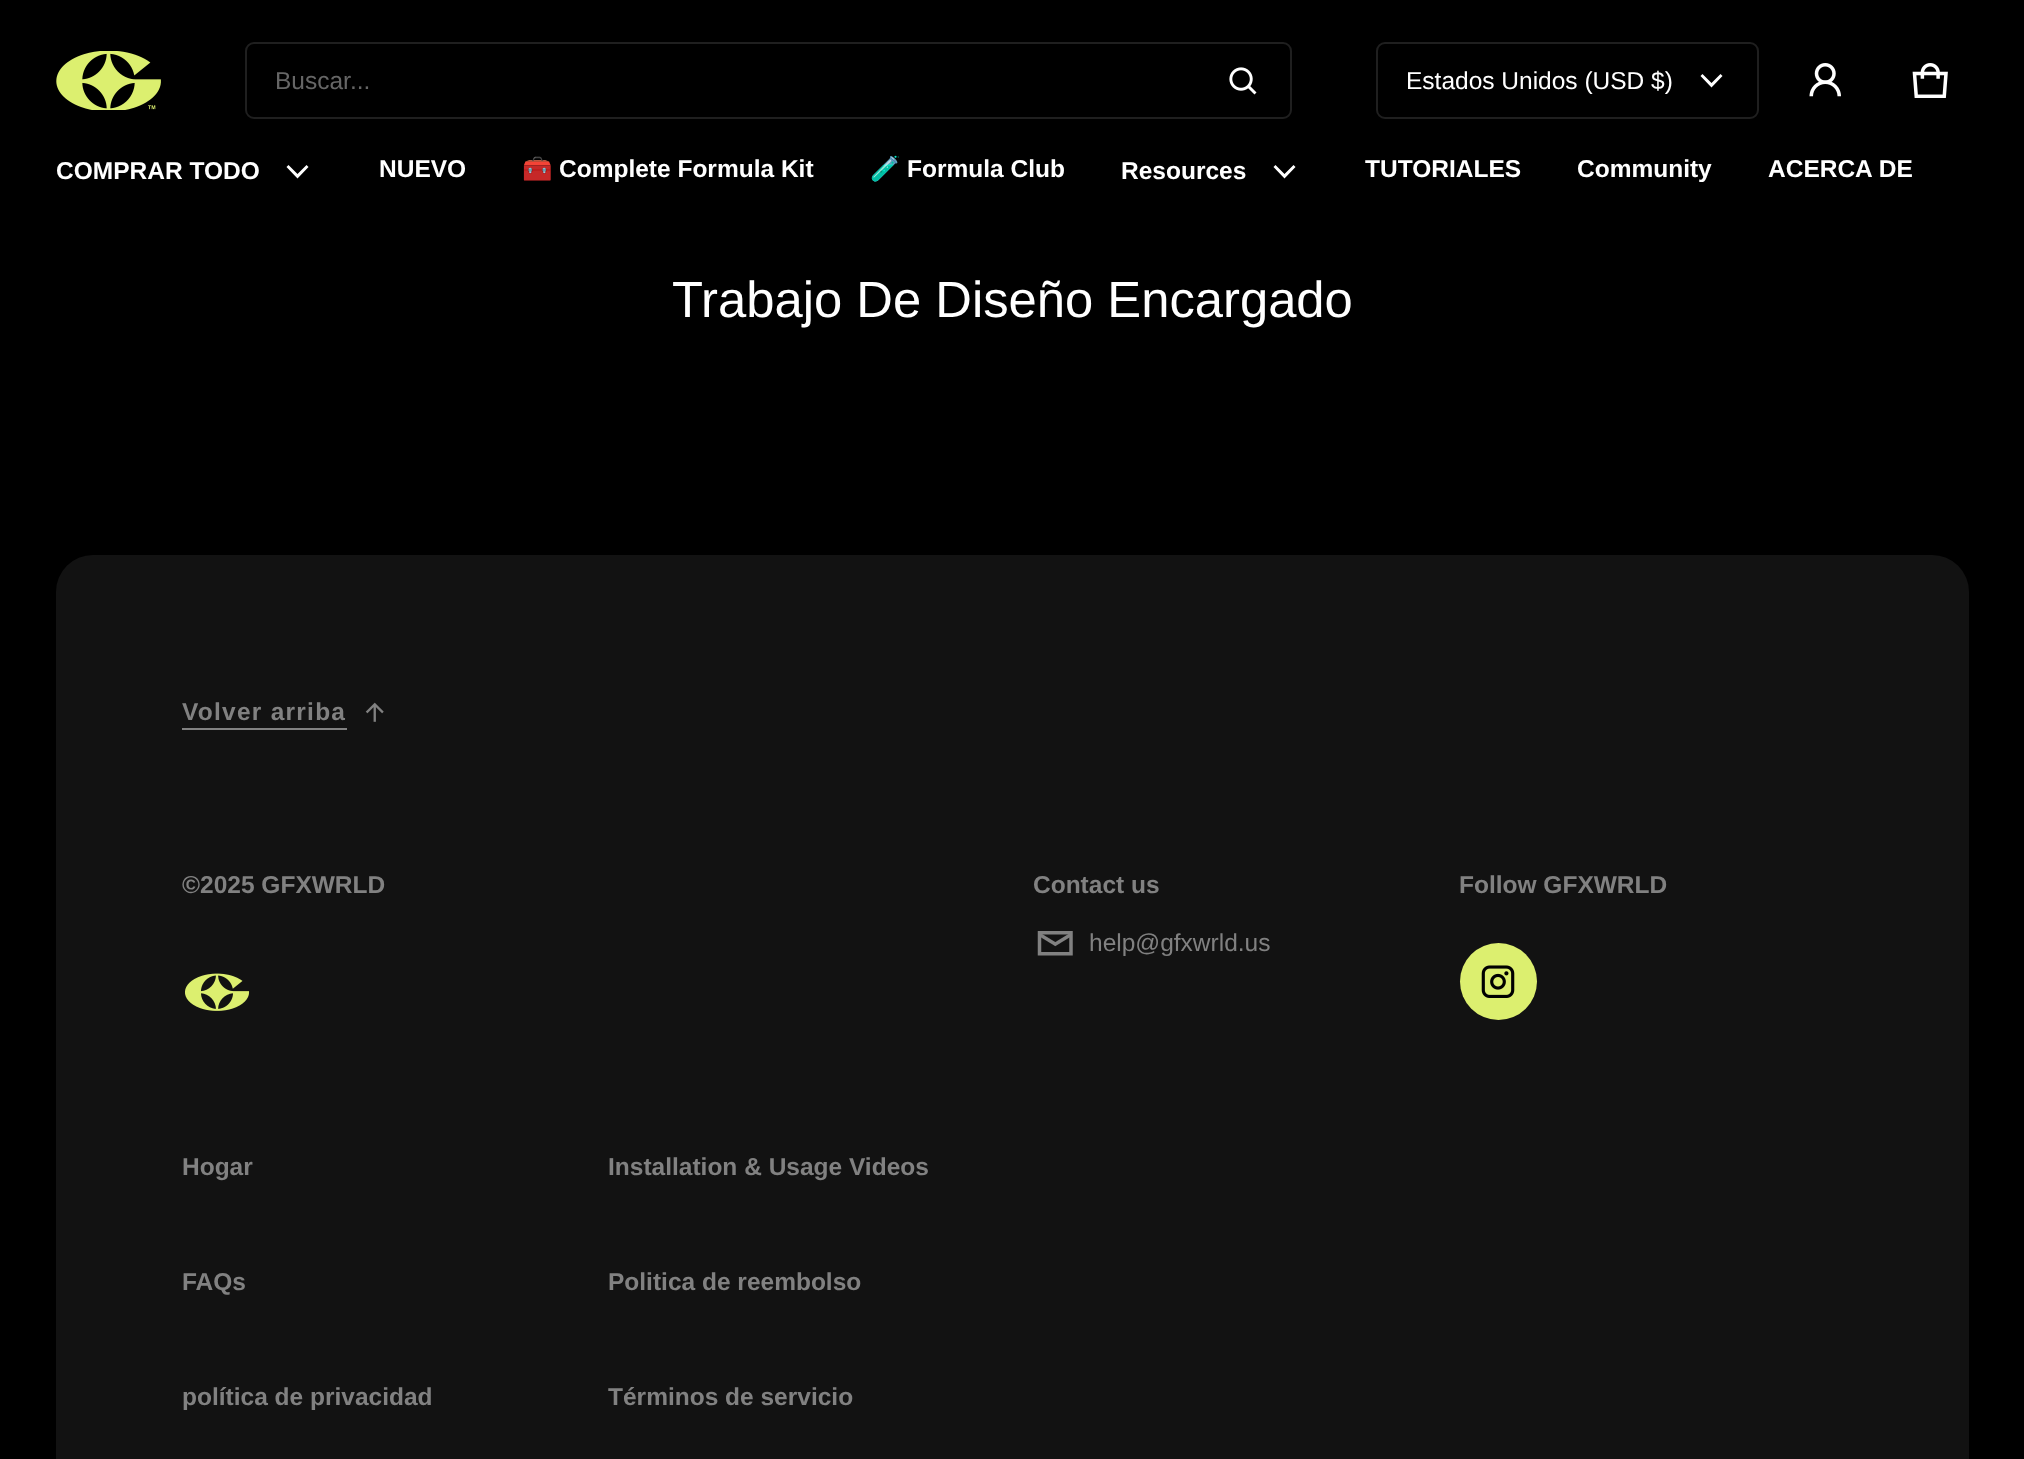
<?xml version="1.0" encoding="UTF-8"?>
<svg xmlns="http://www.w3.org/2000/svg" xmlns:xlink="http://www.w3.org/1999/xlink" width="2024" height="1459">
  <rect width="100%" height="100%" fill="#000000" />
  <image x="56" y="51" width="105" height="59" xlink:href="image1.png" />
  <rect x="246" y="43" width="1045" height="75" rx="8" fill="none" stroke="#1f1f1f" stroke-width="2" />
  <image x="1229" y="67" width="28" height="28" xlink:href="image2.png" />
  <rect x="1377" y="43" width="381" height="75" rx="8" fill="none" stroke="#1f1f1f" stroke-width="2" />
  <path d="M 1722.5 76 l -2 -2 l -9 9 l -9 -9 l -2 2 l 11 11.5 z" fill="#ffffff" fill-rule="evenodd" />
  <image x="1809" y="63" width="32" height="34" xlink:href="image3.png" />
  <image x="1912" y="63" width="36" height="35" xlink:href="image4.png" />
  <path d="M 308.5 167 l -2 -2 l -9 9 l -9 -9 l -2 2 l 11 11.5 z" fill="#ffffff" fill-rule="evenodd" />
  <path d="M 1295.5 167 l -2 -2 l -9 9 l -9 -9 l -2 2 l 11 11.5 z" fill="#ffffff" fill-rule="evenodd" />
  <rect x="56" y="555" width="1913" height="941" rx="37" fill="#121212" />
  <rect x="182" y="728" width="165" height="2" fill="#818181" />
  <image x="365" y="702" width="19" height="20" xlink:href="image5.png" />
  <image x="185" y="973" width="65" height="38" xlink:href="image6.png" />
  <image x="1037" y="931" width="36" height="25" xlink:href="image7.png" />
  <circle cx="1498.5" cy="981.5" r="38.5" fill="#dcef6f" />
  <image x="1481" y="965" width="34" height="33" xlink:href="image8.png" />
  <text x="275" y="89" style="font-family: Liberation Sans; font-size: 24.5px; fill: #666666">Buscar...</text>
  <text x="1406" y="89" style="font-family: Liberation Sans; font-size: 24.5px; fill: #ffffff">Estados Unidos (USD $)</text>
  <text x="56" y="179" style="font-family: Liberation Sans; font-size: 24.5px; font-weight: bold; fill: #ffffff">COMPRAR TODO</text>
  <text x="379" y="177" style="font-family: Liberation Sans; font-size: 24.5px; font-weight: bold; fill: #ffffff">NUEVO</text>
  <text x="522" y="177" style="font-family: Noto Color Emoji; font-size: 24.5px; font-weight: bold; fill: #ffffff">🧰</text>
  <text x="559" y="177" style="font-family: Liberation Sans; font-size: 24.5px; font-weight: bold; fill: #ffffff">Complete Formula Kit</text>
  <text x="870" y="177" style="font-family: Noto Color Emoji; font-size: 24.5px; font-weight: bold; fill: #ffffff">🧪</text>
  <text x="907" y="177" style="font-family: Liberation Sans; font-size: 24.5px; font-weight: bold; fill: #ffffff">Formula Club</text>
  <text x="1121" y="179" style="font-family: Liberation Sans; font-size: 24.5px; font-weight: bold; fill: #ffffff">Resources</text>
  <text x="1365" y="177" style="font-family: Liberation Sans; font-size: 24.5px; font-weight: bold; fill: #ffffff">TUTORIALES</text>
  <text x="1577" y="177" style="font-family: Liberation Sans; font-size: 24.5px; font-weight: bold; fill: #ffffff">Community</text>
  <text x="1768" y="177" style="font-family: Liberation Sans; font-size: 24.5px; font-weight: bold; fill: #ffffff">ACERCA DE</text>
  <text x="672" y="317" style="font-family: Liberation Sans; font-size: 50.75px; fill: #ffffff">Trabajo De Diseño Encargado</text>
  <text x="182" y="720" style="font-family: Liberation Sans; font-size: 24.5px; font-weight: bold; letter-spacing: 1.25px; fill: #818181">Volver arriba</text>
  <text x="182" y="893" style="font-family: Liberation Sans; font-size: 24.5px; font-weight: bold; fill: #818181">©2025 GFXWRLD</text>
  <text x="1033" y="893" style="font-family: Liberation Sans; font-size: 24.5px; font-weight: bold; fill: #818181">Contact us</text>
  <text x="1089" y="951" style="font-family: Liberation Sans; font-size: 24.5px; fill: #818181">help@gfxwrld.us</text>
  <text x="1459" y="893" style="font-family: Liberation Sans; font-size: 24.5px; font-weight: bold; fill: #818181">Follow GFXWRLD</text>
  <text x="182" y="1175" style="font-family: Liberation Sans; font-size: 24.5px; font-weight: bold; fill: #818181">Hogar</text>
  <text x="608" y="1175" style="font-family: Liberation Sans; font-size: 24.5px; font-weight: bold; fill: #818181">Installation &amp; Usage Videos</text>
  <text x="182" y="1290" style="font-family: Liberation Sans; font-size: 24.5px; font-weight: bold; fill: #818181">FAQs</text>
  <text x="608" y="1290" style="font-family: Liberation Sans; font-size: 24.5px; font-weight: bold; fill: #818181">Politica de reembolso</text>
  <text x="182" y="1405" style="font-family: Liberation Sans; font-size: 24.5px; font-weight: bold; fill: #818181">política de privacidad</text>
  <text x="608" y="1405" style="font-family: Liberation Sans; font-size: 24.5px; font-weight: bold; fill: #818181">Términos de servicio</text>
</svg>
